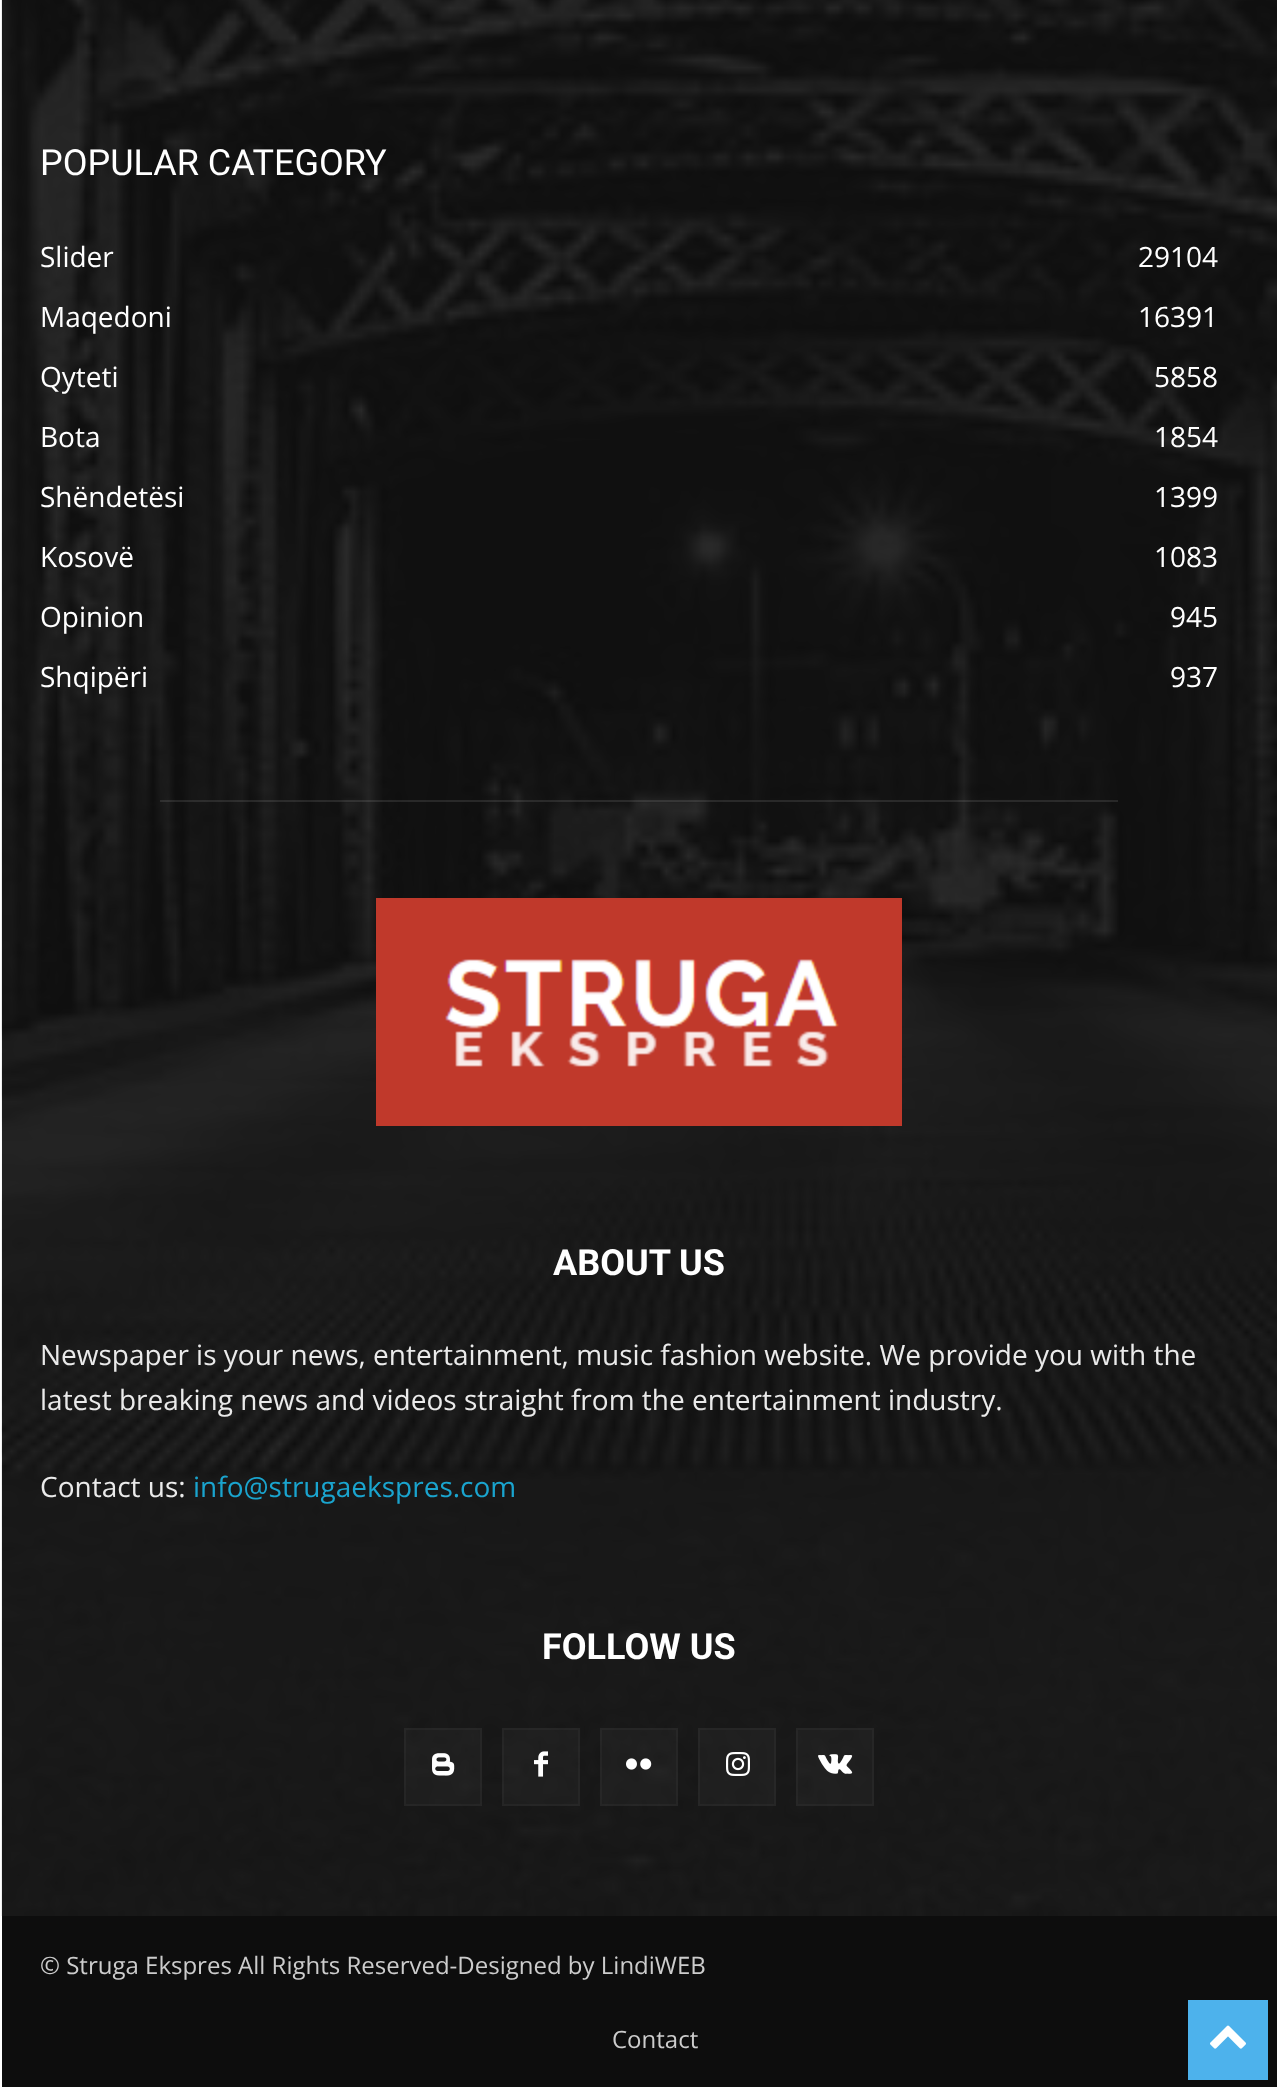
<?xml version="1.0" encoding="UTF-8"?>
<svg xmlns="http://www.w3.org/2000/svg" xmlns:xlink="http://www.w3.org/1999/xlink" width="1277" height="2087">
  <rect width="100%" height="100%" fill="#ffffff" />
  <rect x="2" width="1275" height="1916" fill="#111111" />
  <image x="1" y="0" width="1276" height="1916" xlink:href="image1.png" />
  <rect x="160" y="800" width="958" height="2" fill="#ffffff" fill-opacity="0.1" />
  <image x="376" y="898" width="526" height="228" xlink:href="image2.png" />
  <rect x="404" y="1728" width="78" height="78" fill="#ffffff" fill-opacity="0.03" />
  <rect x="405" y="1729" width="76" height="76" fill="none" stroke="#ffffff" stroke-opacity="0.03" stroke-width="2" />
  <image x="432" y="1753" width="23" height="23" xlink:href="image3.png" />
  <rect x="502" y="1728" width="78" height="78" fill="#ffffff" fill-opacity="0.03" />
  <rect x="503" y="1729" width="76" height="76" fill="none" stroke="#ffffff" stroke-opacity="0.03" stroke-width="2" />
  <image x="534" y="1751" width="14" height="26" xlink:href="image4.png" />
  <rect x="600" y="1728" width="78" height="78" fill="#ffffff" fill-opacity="0.03" />
  <rect x="601" y="1729" width="76" height="76" fill="none" stroke="#ffffff" stroke-opacity="0.03" stroke-width="2" />
  <image x="626" y="1758" width="26" height="12" xlink:href="image5.png" />
  <rect x="698" y="1728" width="78" height="78" fill="#ffffff" fill-opacity="0.03" />
  <rect x="699" y="1729" width="76" height="76" fill="none" stroke="#ffffff" stroke-opacity="0.03" stroke-width="2" />
  <image x="726" y="1752" width="24" height="24" xlink:href="image6.png" />
  <rect x="796" y="1728" width="78" height="78" fill="#ffffff" fill-opacity="0.03" />
  <rect x="797" y="1729" width="76" height="76" fill="none" stroke="#ffffff" stroke-opacity="0.03" stroke-width="2" />
  <image x="818" y="1754" width="35" height="20" xlink:href="image7.png" />
  <rect x="2" y="1916" width="1275" height="171" fill="#0d0d0d" />
  <rect x="1188" y="2000" width="80" height="80" fill="#4db2ec" />
  <image x="1210" y="2025" width="36" height="24" xlink:href="image8.png" />
  <text x="40" y="175" style="font-family: Roboto; font-size: 36px; fill: #ffffff">POPULAR CATEGORY</text>
  <text x="40" y="267" style="font-family: Open Sans; font-size: 28px; fill: #ffffff">Slider</text>
  <text x="1138" y="267" style="font-family: Open Sans; font-size: 28px; fill: #ffffff">29104</text>
  <text x="40" y="327" style="font-family: Open Sans; font-size: 28px; fill: #ffffff">Maqedoni</text>
  <text x="1138" y="327" style="font-family: Open Sans; font-size: 28px; fill: #ffffff">16391</text>
  <text x="40" y="387" style="font-family: Open Sans; font-size: 28px; fill: #ffffff">Qyteti</text>
  <text x="1154" y="387" style="font-family: Open Sans; font-size: 28px; fill: #ffffff">5858</text>
  <text x="40" y="447" style="font-family: Open Sans; font-size: 28px; fill: #ffffff">Bota</text>
  <text x="1154" y="447" style="font-family: Open Sans; font-size: 28px; fill: #ffffff">1854</text>
  <text x="40" y="507" style="font-family: Open Sans; font-size: 28px; fill: #ffffff">Shëndetësi</text>
  <text x="1154" y="507" style="font-family: Open Sans; font-size: 28px; fill: #ffffff">1399</text>
  <text x="40" y="567" style="font-family: Open Sans; font-size: 28px; fill: #ffffff">Kosovë</text>
  <text x="1154" y="567" style="font-family: Open Sans; font-size: 28px; fill: #ffffff">1083</text>
  <text x="40" y="627" style="font-family: Open Sans; font-size: 28px; fill: #ffffff">Opinion</text>
  <text x="1170" y="627" style="font-family: Open Sans; font-size: 28px; fill: #ffffff">945</text>
  <text x="40" y="687" style="font-family: Open Sans; font-size: 28px; fill: #ffffff">Shqipëri</text>
  <text x="1170" y="687" style="font-family: Open Sans; font-size: 28px; fill: #ffffff">937</text>
  <text x="553" y="1275" style="font-family: Roboto; font-size: 36px; font-weight: bold; fill: #ffffff">ABOUT US</text>
  <text x="40" y="1365" style="font-family: Open Sans; font-size: 28px; fill: #eaeaea">Newspaper is your news, entertainment, music fashion website. We provide you with the</text>
  <text x="40" y="1410" style="font-family: Open Sans; font-size: 28px; fill: #eaeaea">latest breaking news and videos straight from the entertainment industry.</text>
  <text x="40" y="1497" style="font-family: Open Sans; font-size: 28px; fill: #eaeaea">Contact us:</text>
  <text x="193" y="1497" style="font-family: Open Sans; font-size: 28px; fill: #1aa4ce">info@strugaekspres.com</text>
  <text x="542" y="1659" style="font-family: Roboto; font-size: 36px; font-weight: bold; fill: #ffffff">FOLLOW US</text>
  <text x="40" y="1974" style="font-family: Open Sans; font-size: 24px; fill: #cccccc">© Struga Ekspres All Rights Reserved-Designed by LindiWEB</text>
  <text x="612" y="2048" style="font-family: Open Sans; font-size: 24px; fill: #cccccc">Contact</text>
</svg>
